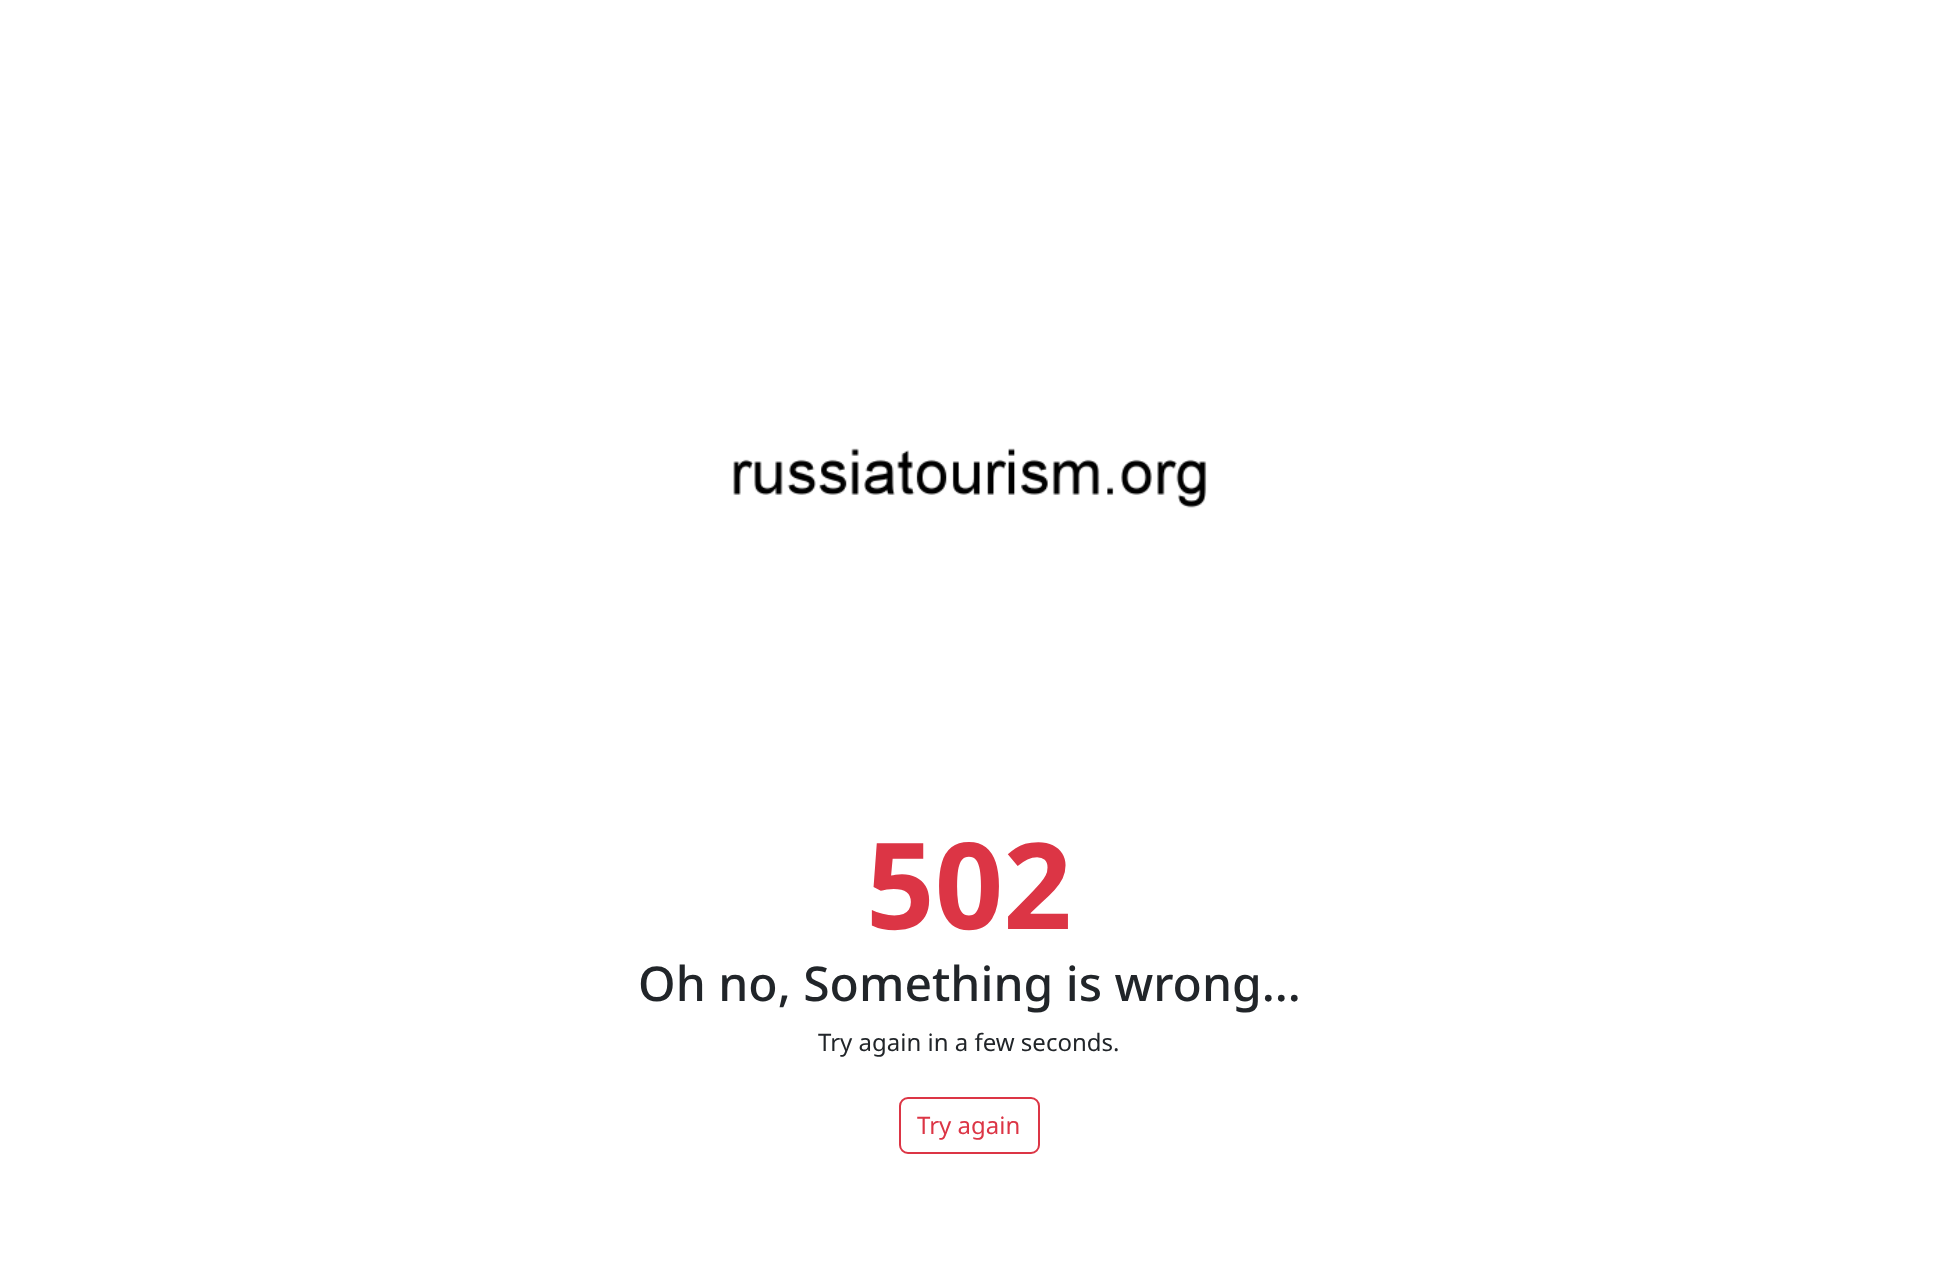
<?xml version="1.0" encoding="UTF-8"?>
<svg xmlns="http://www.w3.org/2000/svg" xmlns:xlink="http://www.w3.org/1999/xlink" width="1938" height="1269">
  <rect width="100%" height="100%" fill="#ffffff" />
  <image x="733" y="448" width="474" height="60" xlink:href="image1.png" />
  <rect x="900" y="1098" width="139" height="55" rx="8" fill="none" stroke="#dc3545" stroke-width="2" />
  <text x="866" y="929" style="font-family: Noto Sans; font-size: 120px; font-weight: bold; fill: #dc3545">502</text>
  <text x="638" y="1001" style="font-family: Noto Sans; font-size: 48px; font-weight: 500; fill: #212529">Oh no, Something is wrong...</text>
  <text x="818" y="1051" style="font-family: Noto Sans; font-size: 24px; fill: #212529">Try again in a few seconds.</text>
  <text x="917" y="1134" style="font-family: Noto Sans; font-size: 24px; fill: #dc3545">Try again</text>
</svg>
